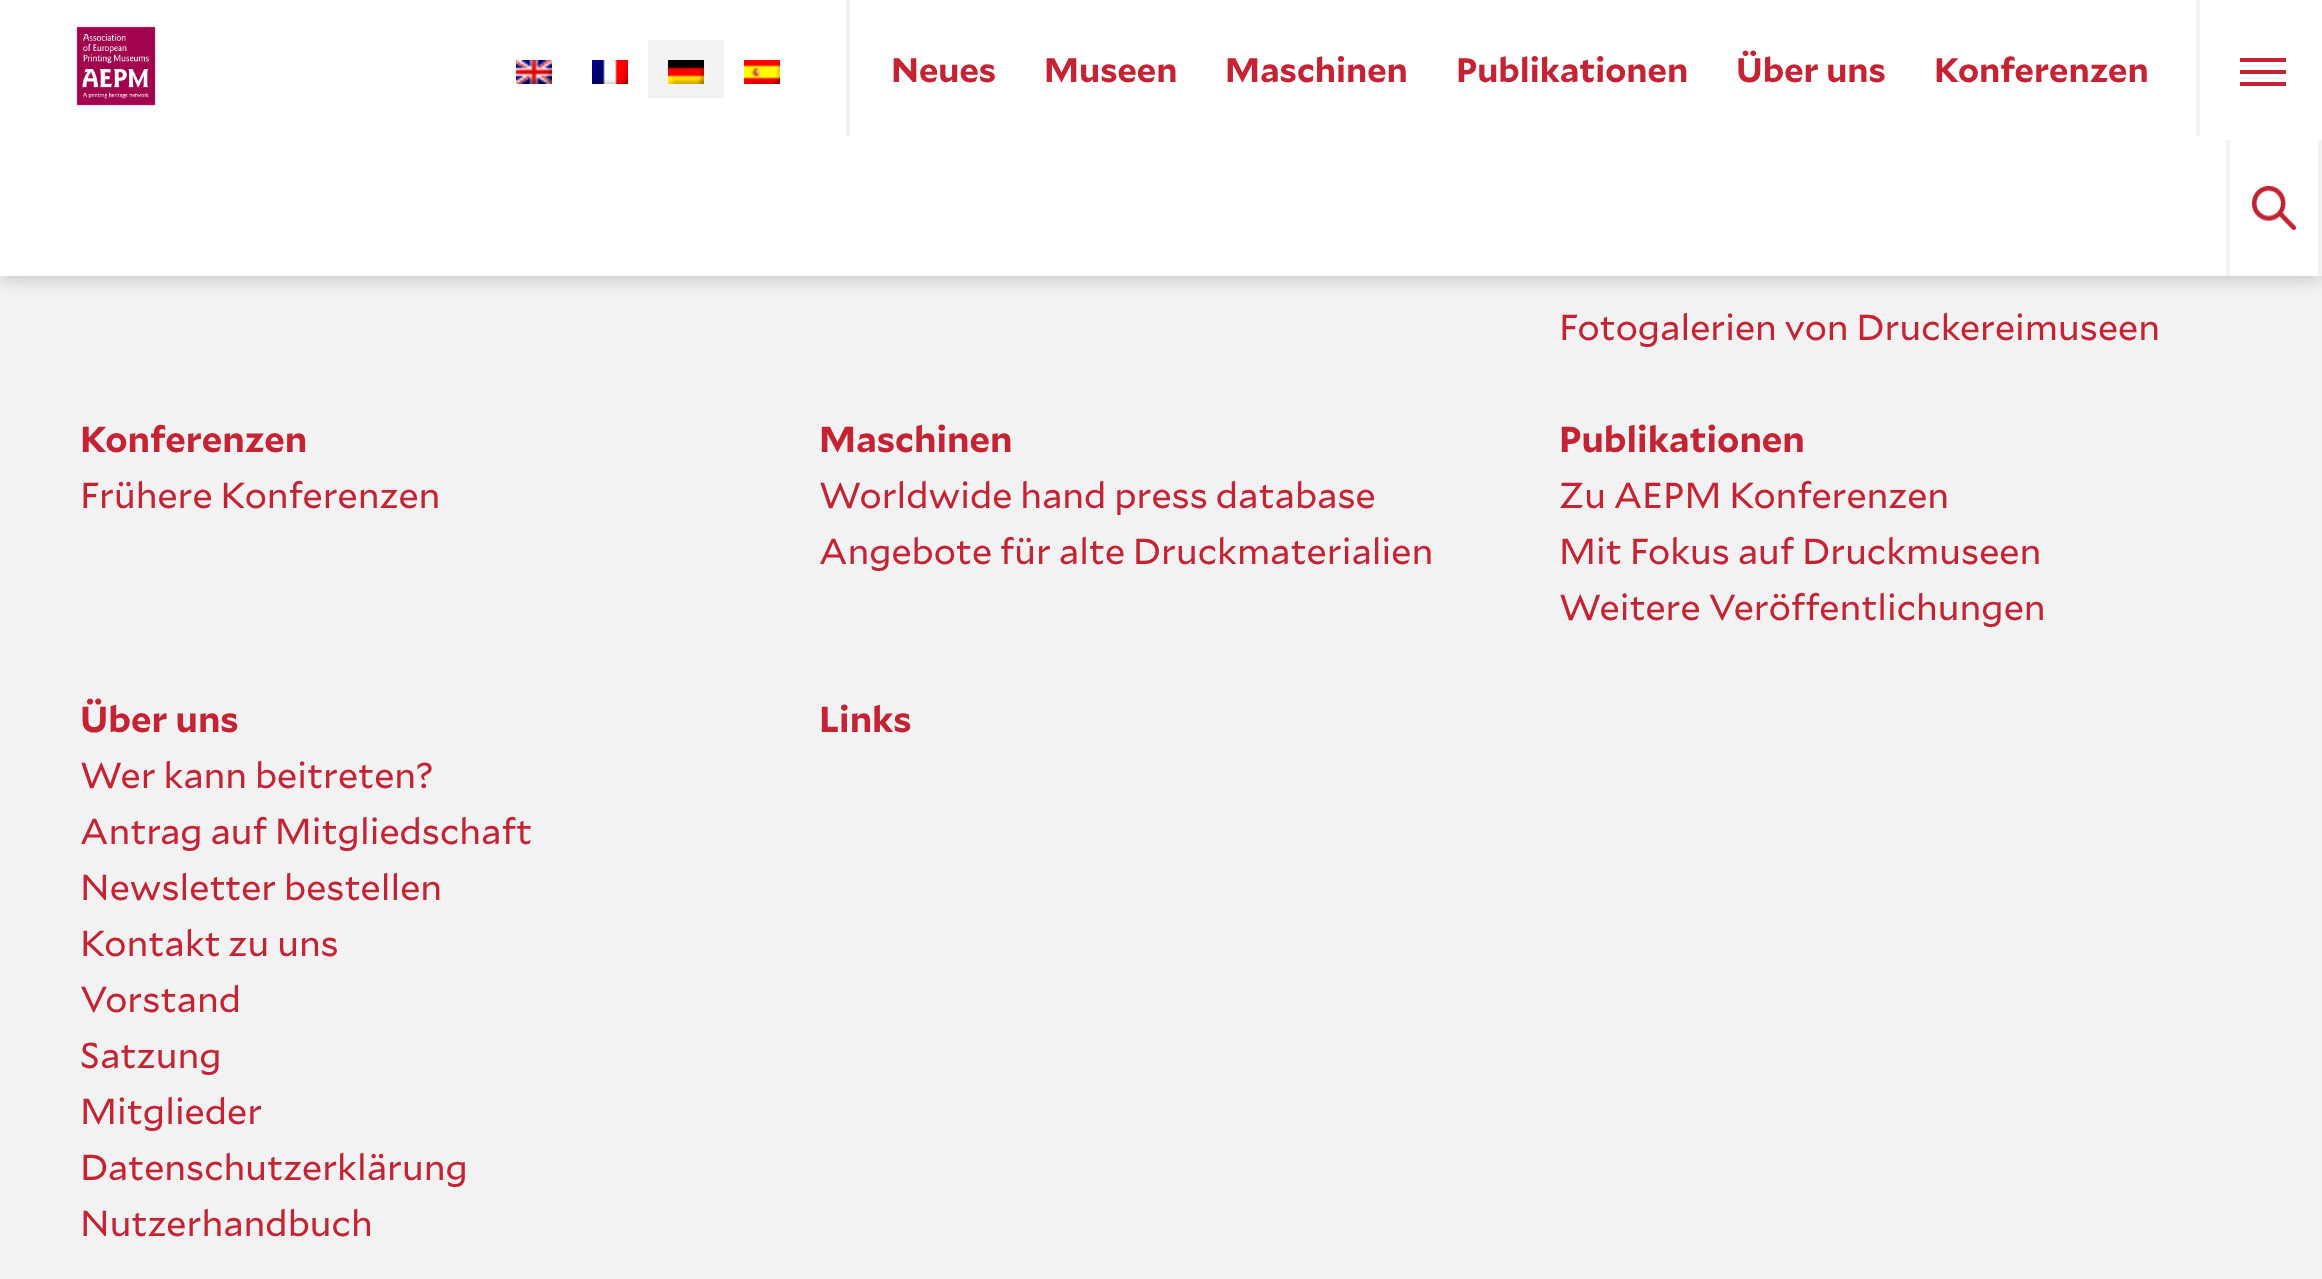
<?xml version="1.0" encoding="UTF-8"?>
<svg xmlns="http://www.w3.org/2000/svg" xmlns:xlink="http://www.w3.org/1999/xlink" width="2322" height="1279">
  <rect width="100%" height="100%" fill="#f2f2f2" />
  <rect width="2322" height="276" fill="#000000" fill-opacity="0.25" filter="blur(10px)" />
  <rect width="2322" height="276" fill="#ffffff" />
  <image x="76" y="26" width="80" height="80" xlink:href="image1.png" />
  <image x="516" y="60" width="36" height="24" xlink:href="image2.png" />
  <image x="592" y="60" width="36" height="24" xlink:href="image3.png" />
  <rect x="648" y="40" width="76" height="58" fill="#f2f2f2" />
  <image x="668" y="60" width="36" height="24" xlink:href="image4.png" />
  <image x="744" y="60" width="36" height="24" xlink:href="image5.png" />
  <rect x="846" width="4" height="136" fill="#f2f2f2" />
  <rect x="2196" width="4" height="136" fill="#f2f2f2" />
  <rect x="2240" y="70" width="46" height="4" fill="#c52233" />
  <rect x="2240" y="58" width="46" height="4" fill="#c52233" />
  <rect x="2240" y="82" width="46" height="4" fill="#c52233" />
  <image x="2252" y="186" width="44" height="44" xlink:href="image6.png" />
  <rect x="2318" y="140" width="4" height="136" fill="#f2f2f2" />
  <rect x="2226" y="140" width="4" height="136" fill="#f2f2f2" />
  <text x="891" y="82" style="font-family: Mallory; font-size: 34px; font-weight: bold; fill: #c52233">Neues</text>
  <text x="1044" y="82" style="font-family: Mallory; font-size: 34px; font-weight: bold; fill: #c52233">Museen</text>
  <text x="1225" y="82" style="font-family: Mallory; font-size: 34px; font-weight: bold; fill: #c52233">Maschinen</text>
  <text x="1456" y="82" style="font-family: Mallory; font-size: 34px; font-weight: bold; fill: #c52233">Publikationen</text>
  <text x="1736" y="82" style="font-family: Mallory; font-size: 34px; font-weight: bold; fill: #c52233">Über uns</text>
  <text x="1934" y="82" style="font-family: Mallory; font-size: 34px; font-weight: bold; fill: #c52233">Konferenzen</text>
  <text x="1559" y="340" style="font-family: Mallory; font-size: 36px; fill: #c52233">Fotogalerien von Druckereimuseen</text>
  <text x="80" y="452" style="font-family: Mallory; font-size: 36px; font-weight: bold; fill: #c52233">Konferenzen</text>
  <text x="80" y="508" style="font-family: Mallory; font-size: 36px; fill: #c52233">Frühere Konferenzen</text>
  <text x="819" y="452" style="font-family: Mallory; font-size: 36px; font-weight: bold; fill: #c52233">Maschinen</text>
  <text x="819" y="508" style="font-family: Mallory; font-size: 36px; fill: #c52233">Worldwide hand press database</text>
  <text x="819" y="564" style="font-family: Mallory; font-size: 36px; fill: #c52233">Angebote für alte Druckmaterialien</text>
  <text x="1559" y="452" style="font-family: Mallory; font-size: 36px; font-weight: bold; fill: #c52233">Publikationen</text>
  <text x="1559" y="508" style="font-family: Mallory; font-size: 36px; fill: #c52233">Zu AEPM Konferenzen</text>
  <text x="1559" y="564" style="font-family: Mallory; font-size: 36px; fill: #c52233">Mit Fokus auf Druckmuseen</text>
  <text x="1559" y="620" style="font-family: Mallory; font-size: 36px; fill: #c52233">Weitere Veröffentlichungen</text>
  <text x="80" y="732" style="font-family: Mallory; font-size: 36px; font-weight: bold; fill: #c52233">Über uns</text>
  <text x="80" y="788" style="font-family: Mallory; font-size: 36px; fill: #c52233">Wer kann beitreten?</text>
  <text x="80" y="844" style="font-family: Mallory; font-size: 36px; fill: #c52233">Antrag auf Mitgliedschaft</text>
  <text x="80" y="900" style="font-family: Mallory; font-size: 36px; fill: #c52233">Newsletter bestellen</text>
  <text x="80" y="956" style="font-family: Mallory; font-size: 36px; fill: #c52233">Kontakt zu uns</text>
  <text x="80" y="1012" style="font-family: Mallory; font-size: 36px; fill: #c52233">Vorstand</text>
  <text x="80" y="1068" style="font-family: Mallory; font-size: 36px; fill: #c52233">Satzung</text>
  <text x="80" y="1124" style="font-family: Mallory; font-size: 36px; fill: #c52233">Mitglieder</text>
  <text x="80" y="1180" style="font-family: Mallory; font-size: 36px; fill: #c52233">Datenschutzerklärung</text>
  <text x="80" y="1236" style="font-family: Mallory; font-size: 36px; fill: #c52233">Nutzerhandbuch</text>
  <text x="819" y="732" style="font-family: Mallory; font-size: 36px; font-weight: bold; fill: #c52233">Links</text>
</svg>
